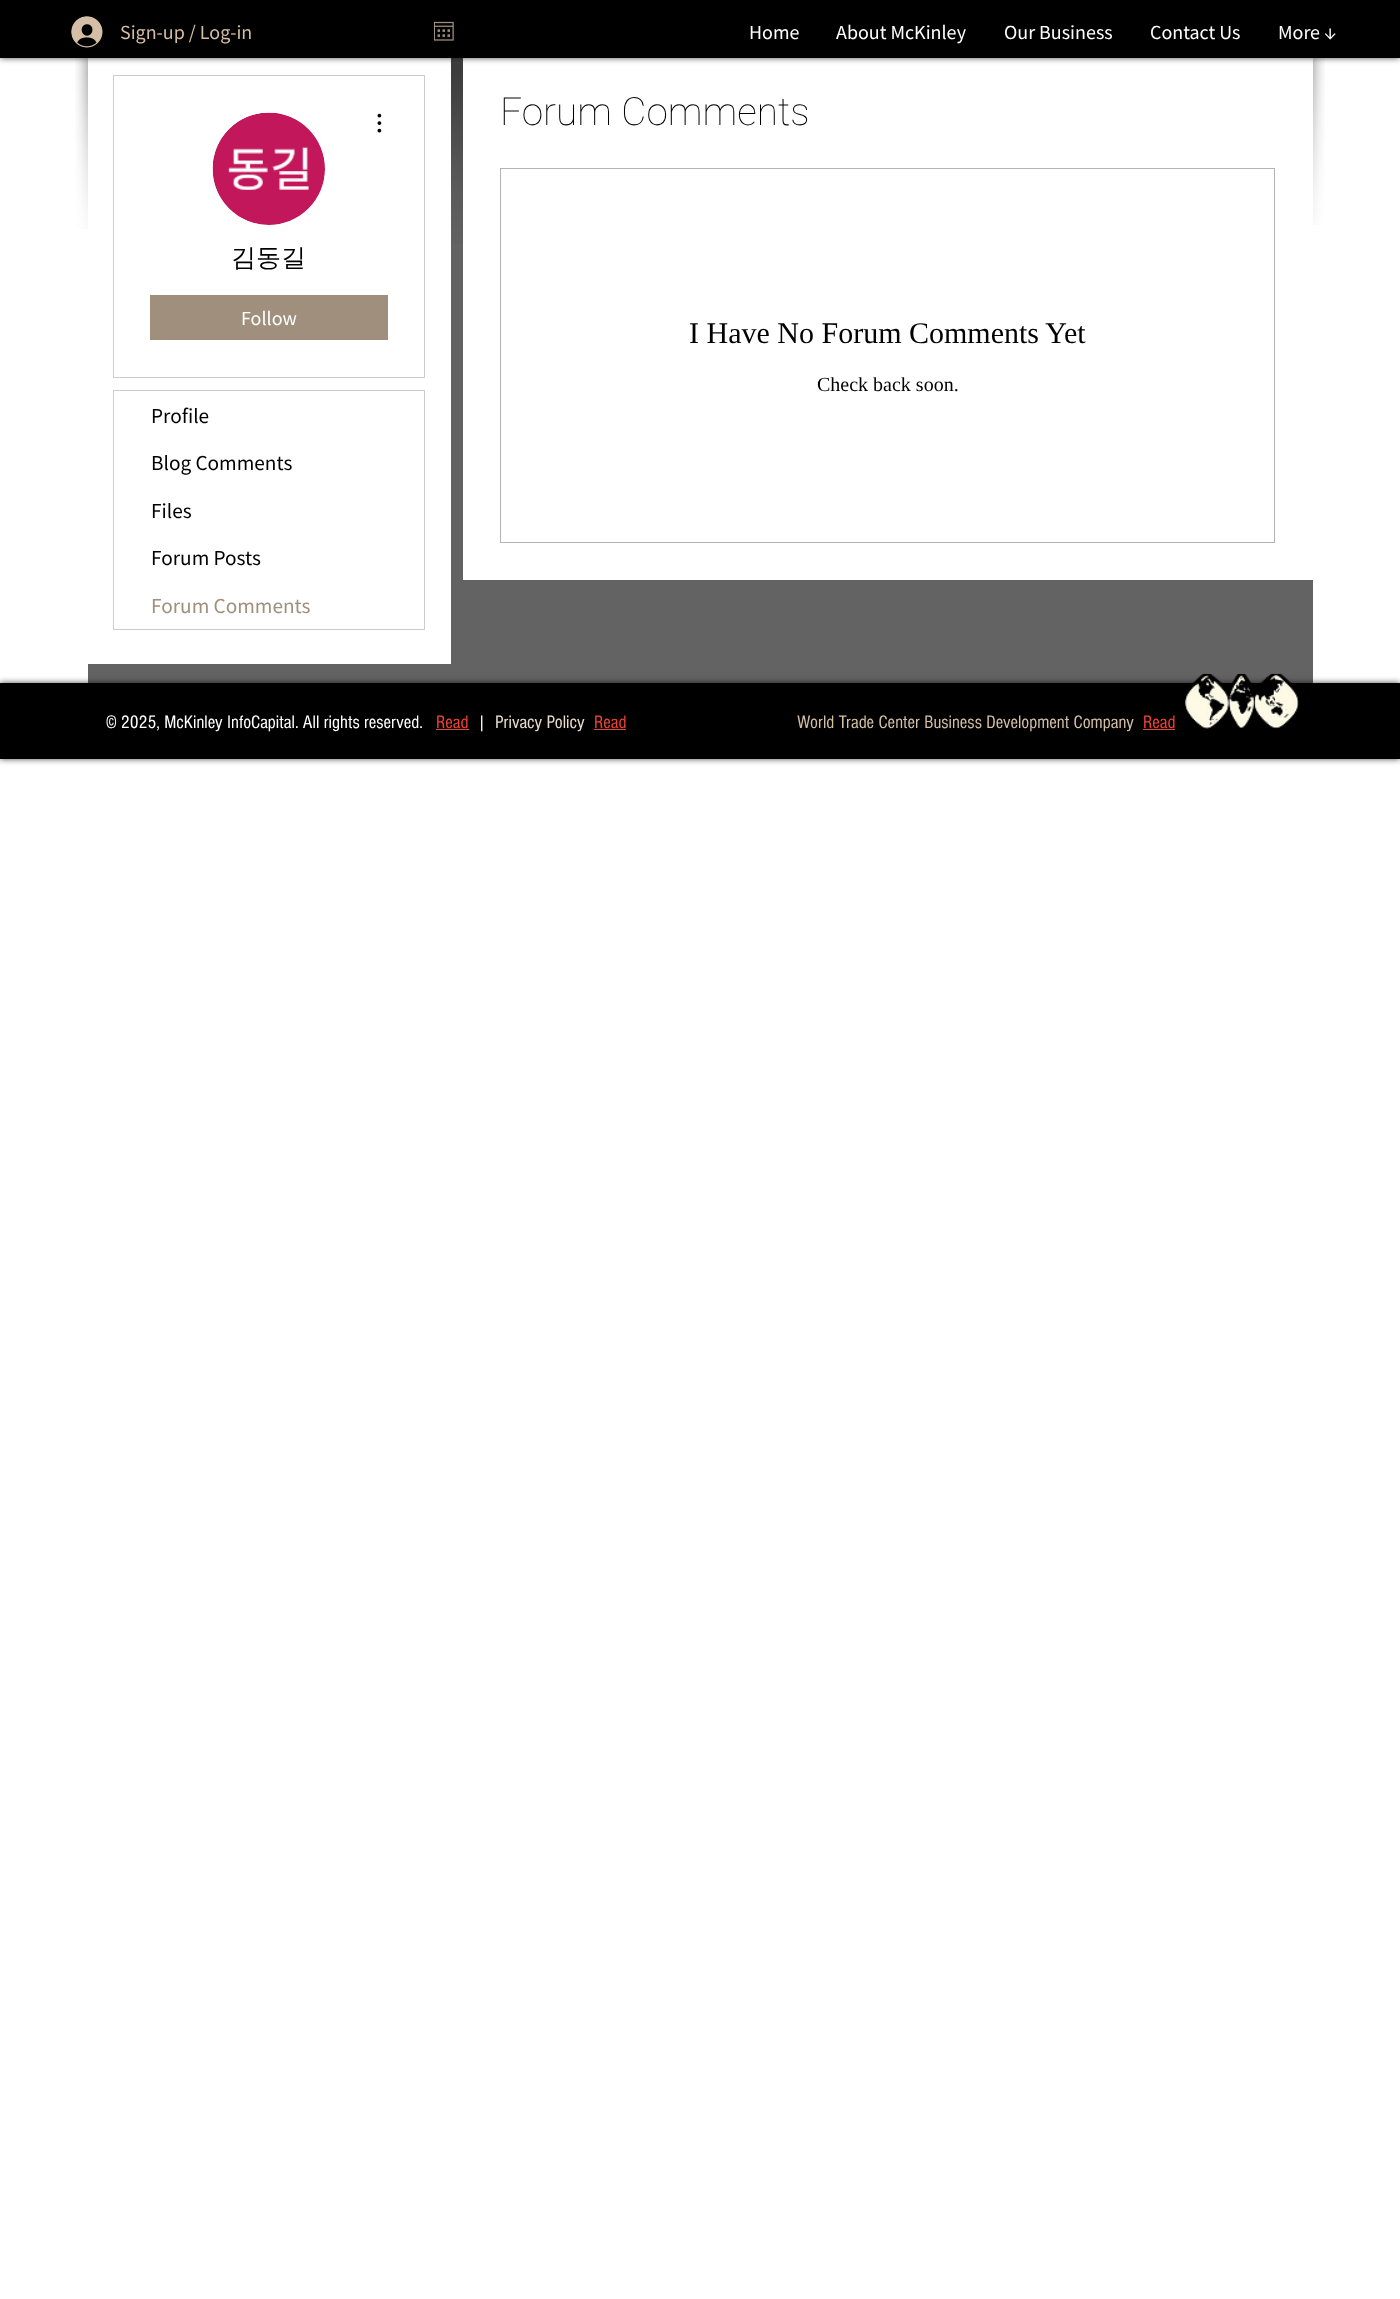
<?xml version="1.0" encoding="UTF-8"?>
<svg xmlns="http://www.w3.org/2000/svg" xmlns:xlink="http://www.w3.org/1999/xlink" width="1400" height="2299">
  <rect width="100%" height="100%" fill="#ffffff" />
  <image x="451" y="58" width="12" height="186" xlink:href="image6.png" />
  <rect x="88" y="58" width="1225" height="625" fill="#000000" fill-opacity="0.61" />
  <rect x="88" y="58" width="363" height="606" fill="#ffffff" />
  <image x="75" y="58" width="13" height="171" xlink:href="image5.png" />
  <image x="1313" y="58" width="12" height="167" xlink:href="image7.png" />
  <rect x="463" y="58" width="850" height="522" fill="#ffffff" />
  <rect width="1400" height="58" fill="#000000" fill-opacity="0.7" filter="blur(3px)" />
  <rect width="1400" height="58" fill="#000000" />
  <image x="71" y="16" width="32" height="32" xlink:href="image1.png" />
  <image x="434" y="21" width="20" height="20" xlink:href="image2.png" />
  <rect x="113.5" y="75.5" width="311" height="302" fill="none" stroke="#cccccc" />
  <circle cx="269" cy="169" r="56" fill="#d8d8d8" />
  <image x="212" y="112" width="113" height="113" xlink:href="image3.png" />
  <image x="377" y="113" width="5" height="20" xlink:href="image4.png" />
  <rect x="150" y="295" width="238" height="45" fill="#9f8f7c" />
  <rect x="113.5" y="390.5" width="311" height="239" fill="none" stroke="#cccccc" />
  <rect x="500.5" y="168.5" width="774" height="374" fill="none" stroke="#b3b3b3" />
  <rect y="683" width="1400" height="76" fill="#000000" fill-opacity="0.7" filter="blur(3px)" />
  <rect y="683" width="1400" height="76" fill="#000000" />
  <rect x="436" y="729" width="33" height="1" fill="#f34235" />
  <rect x="594" y="729" width="32" height="1" fill="#f34235" />
  <rect x="1143" y="729" width="32" height="1" fill="#f34235" />
  <image x="1185" y="673" width="114" height="56" xlink:href="image8.png" />
  <text x="120" y="39" style="font-family: Source Sans Pro; font-size: 20px; fill: #d4bea5">Sign-up / Log-in</text>
  <text x="749" y="39" style="font-family: Source Sans Pro; font-size: 20px; fill: #ffffff">Home</text>
  <text x="836" y="39" style="font-family: Source Sans Pro; font-size: 20px; fill: #ffffff">About McKinley</text>
  <text x="1004" y="39" style="font-family: Source Sans Pro; font-size: 20px; fill: #ffffff">Our Business</text>
  <text x="1150" y="39" style="font-family: Source Sans Pro; font-size: 20px; fill: #ffffff">Contact Us</text>
  <text x="1278" y="39" style="font-family: Source Sans Pro; font-size: 20px; fill: #ffffff">More ↓</text>
  <text x="231" y="266" style="font-family: WenQuanYi Zen Hei; font-size: 25px; font-weight: 500; fill: #000000">김동길</text>
  <text x="241" y="325" style="font-family: Source Sans Pro; font-size: 20px; fill: #ffffff">Follow</text>
  <text x="151" y="423" style="font-family: Source Sans Pro; font-size: 21.25px; fill: #000000">Profile</text>
  <text x="151" y="470" style="font-family: Source Sans Pro; font-size: 21.25px; fill: #000000">Blog Comments</text>
  <text x="151" y="518" style="font-family: Source Sans Pro; font-size: 21.25px; fill: #000000">Files</text>
  <text x="151" y="565" style="font-family: Source Sans Pro; font-size: 21.25px; fill: #000000">Forum Posts</text>
  <text x="151" y="613" style="font-family: Source Sans Pro; font-size: 21.25px; fill: #9f8f7c">Forum Comments</text>
  <text x="500" y="125" style="font-family: Roboto; font-size: 38.75px; font-weight: 100; fill: #000000">Forum Comments</text>
  <text x="689" y="343" style="font-family: Liberation Serif; font-size: 30px; fill: #000000">I Have No Forum Comments Yet</text>
  <text x="817" y="391" style="font-family: Liberation Serif; font-size: 20px; fill: #000000">Check back soon.</text>
  <text x="106" y="728" style="font-family: 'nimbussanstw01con'; font-size: 18.75px; fill: #ffffff">© 2025, McKinley InfoCapital. All rights reserved.</text>
  <text x="436" y="728" style="font-family: 'nimbussanstw01con'; font-size: 18.75px; fill: #f34235">Read</text>
  <text x="477" y="728" style="font-family: 'nimbussanstw01con'; font-size: 18.75px; fill: #ffffff">|</text>
  <text x="495" y="728" style="font-family: 'nimbussanstw01con'; font-size: 18.75px; fill: #eaddd0">Privacy Policy</text>
  <text x="594" y="728" style="font-family: 'nimbussanstw01con'; font-size: 18.75px; fill: #f34235">Read</text>
  <text x="797" y="728" style="font-family: 'nimbussanstw01con'; font-size: 18.75px; fill: #d4bea5">World Trade Center Business Development Company</text>
  <text x="1143" y="728" style="font-family: 'nimbussanstw01con'; font-size: 18.75px; fill: #f34235">Read</text>
</svg>
